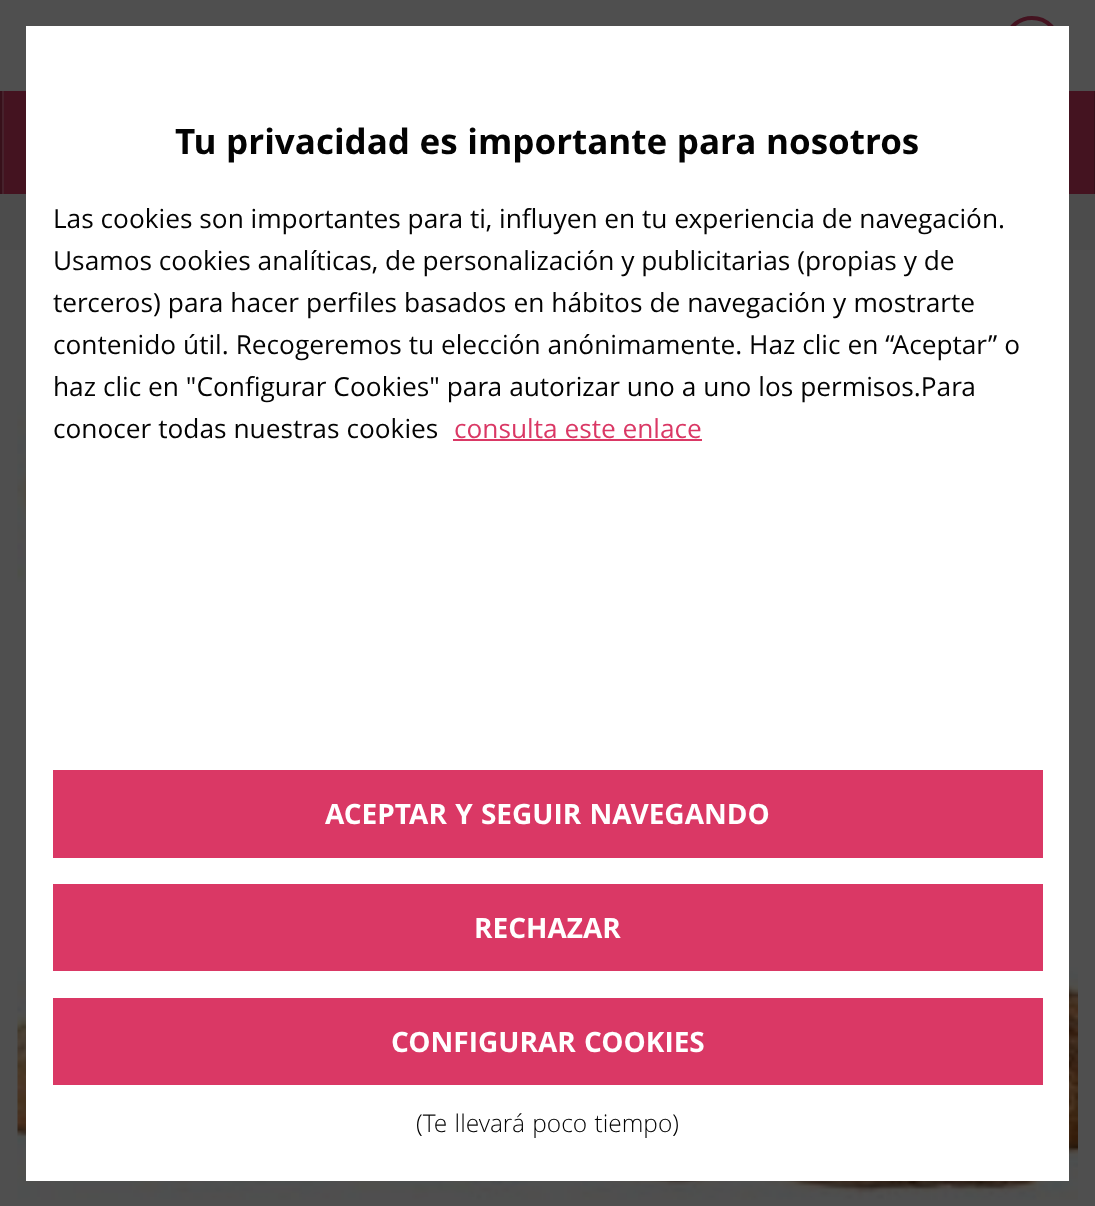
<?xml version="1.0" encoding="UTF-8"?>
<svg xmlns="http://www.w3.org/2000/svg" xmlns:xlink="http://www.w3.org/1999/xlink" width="1095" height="1206">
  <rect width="100%" height="100%" fill="#4f4f4f" />
  <rect x="1005" y="18" width="54" height="55" rx="27" fill="none" stroke="#441320" stroke-width="4" />
  <rect x="4" y="91" width="1090" height="103" fill="#441320" />
  <rect y="91" width="2" height="103" fill="#37101a" />
  <rect x="2" y="91" width="2" height="103" fill="#46222c" />
  <rect x="1094" y="91" width="1" height="103" fill="#37101a" />
  <rect y="194" width="1095" height="56" fill="#4c4c4c" />
  <image x="17" y="350" width="1061" height="850" xlink:href="image1.png" />
  <rect x="26" y="26" width="1043" height="1155" fill="#ffffff" />
  <rect x="453" y="439" width="249" height="2" fill="#da3865" />
  <rect x="53" y="770" width="990" height="88" fill="#da3865" />
  <rect x="53" y="884" width="990" height="87" fill="#da3865" />
  <rect x="53" y="998" width="990" height="87" fill="#da3865" />
  <text x="175" y="154" word-spacing="0.5" style="font-family: Open Sans; font-size: 35px; font-weight: bold; fill: #030303">Tu privacidad es importante para nosotros</text>
  <text x="53" y="228" style="font-family: Open Sans; font-size: 26.25px; fill: #030303">Las cookies son importantes para ti, influyen en tu experiencia de navegación.</text>
  <text x="53" y="270" style="font-family: Open Sans; font-size: 26.25px; fill: #030303">Usamos cookies analíticas, de personalización y publicitarias (propias y de</text>
  <text x="53" y="312" word-spacing="0.25" style="font-family: Open Sans; font-size: 26.25px; fill: #030303">terceros) para hacer perfiles basados en hábitos de navegación y mostrarte</text>
  <text x="53" y="354" word-spacing="0.1" style="font-family: Open Sans; font-size: 26.25px; fill: #030303">contenido útil. Recogeremos tu elección anónimamente. Haz clic en “Aceptar” o</text>
  <text x="53" y="396" word-spacing="0.1" style="font-family: Open Sans; font-size: 26.25px; fill: #030303">haz clic en "Configurar Cookies" para autorizar uno a uno los permisos.Para</text>
  <text x="53" y="438" word-spacing="0.1" style="font-family: Open Sans; font-size: 26.25px; fill: #030303">conocer todas nuestras cookies</text>
  <text x="454" y="438" style="font-family: Open Sans; font-size: 26.25px; fill: #da3865">consulta este enlace</text>
  <text x="325" y="824" word-spacing="1" style="font-family: Open Sans; font-size: 28px; font-weight: bold; fill: #ffffff">ACEPTAR Y SEGUIR NAVEGANDO</text>
  <text x="474" y="938" style="font-family: Open Sans; font-size: 28px; font-weight: bold; fill: #ffffff">RECHAZAR</text>
  <text x="391" y="1052" word-spacing="1" style="font-family: Open Sans; font-size: 28px; font-weight: bold; fill: #ffffff">CONFIGURAR COOKIES</text>
  <text x="416" y="1132" word-spacing="1" style="font-family: Open Sans; font-size: 24.5px; font-weight: 300; fill: #030303">(Te llevará poco tiempo)</text>
</svg>
